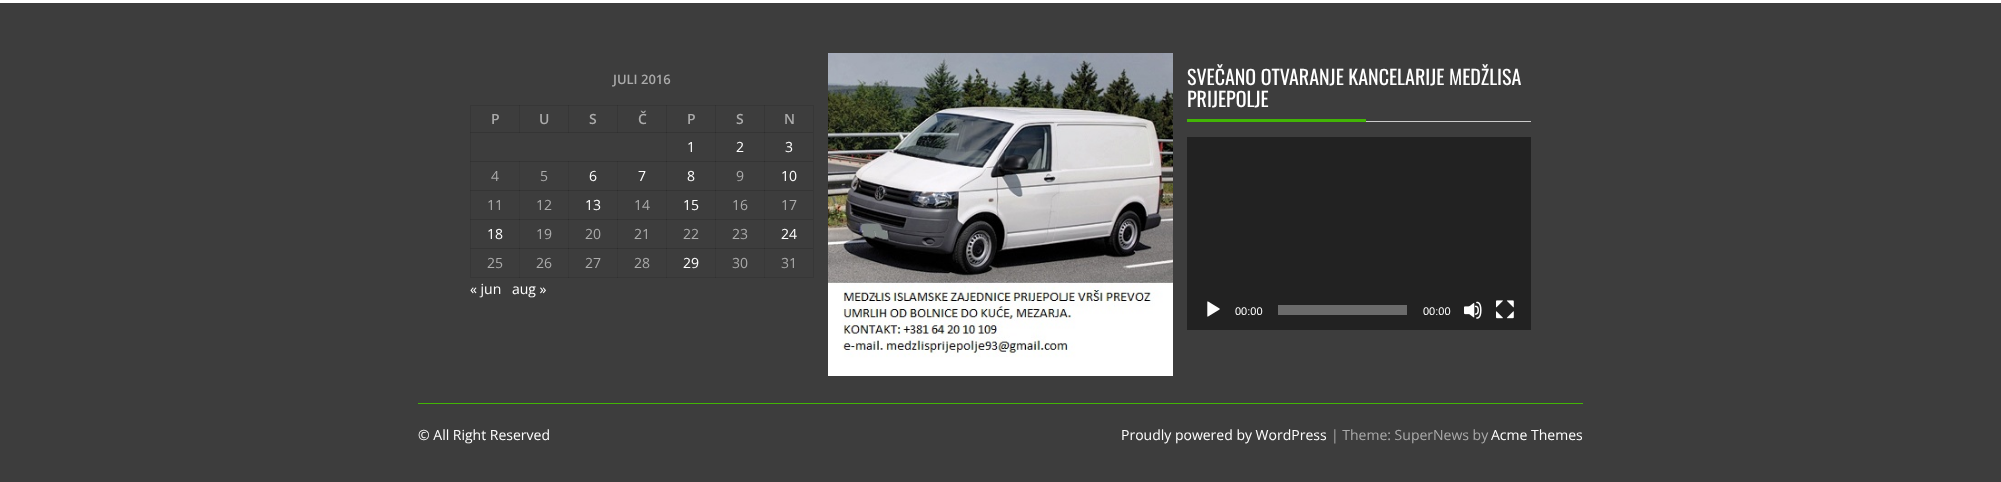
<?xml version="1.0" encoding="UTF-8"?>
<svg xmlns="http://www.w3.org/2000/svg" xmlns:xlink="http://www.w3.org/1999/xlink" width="2001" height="482">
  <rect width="100%" height="100%" fill="#ffffff" />
  <rect y="3" width="2001" height="479" fill="#3d3d3d" />
  <rect x="666" y="132" width="1" height="146" fill="#393939" />
  <rect x="715" y="132" width="1" height="146" fill="#393939" />
  <rect x="764" y="132" width="1" height="146" fill="#393939" />
  <rect x="519" y="161" width="1" height="117" fill="#393939" />
  <rect x="568" y="161" width="1" height="117" fill="#393939" />
  <rect x="617" y="161" width="1" height="117" fill="#393939" />
  <rect x="519" y="105" width="1" height="27" fill="#373737" />
  <rect x="568" y="105" width="1" height="27" fill="#373737" />
  <rect x="617" y="105" width="1" height="27" fill="#373737" />
  <rect x="666" y="105" width="1" height="27" fill="#373737" />
  <rect x="715" y="105" width="1" height="27" fill="#373737" />
  <rect x="764" y="105" width="1" height="27" fill="#373737" />
  <rect x="470" y="105" width="344" height="1" fill="#373737" />
  <rect x="519" y="105" width="1" height="1" fill="#313131" />
  <rect x="568" y="105" width="1" height="1" fill="#313131" />
  <rect x="617" y="105" width="1" height="1" fill="#313131" />
  <rect x="666" y="105" width="1" height="1" fill="#313131" />
  <rect x="715" y="105" width="1" height="1" fill="#313131" />
  <rect x="470" y="248" width="344" height="1" fill="#353535" />
  <rect x="470" y="277" width="295" height="1" fill="#373737" />
  <rect x="470" y="219" width="1" height="59" fill="#373737" />
  <rect x="470" y="219" width="344" height="1" fill="#353535" />
  <rect x="470" y="190" width="1" height="30" fill="#373737" />
  <rect x="470" y="190" width="344" height="1" fill="#353535" />
  <rect x="470" y="161" width="1" height="30" fill="#373737" />
  <rect x="470" y="161" width="344" height="1" fill="#353535" />
  <rect x="470" y="132" width="1" height="30" fill="#373737" />
  <rect x="470" y="132" width="344" height="1" fill="#353535" />
  <rect x="519" y="132" width="1" height="1" fill="#303030" />
  <rect x="568" y="132" width="1" height="1" fill="#303030" />
  <rect x="617" y="132" width="1" height="1" fill="#303030" />
  <rect x="666" y="132" width="1" height="1" fill="#2d2d2d" />
  <rect x="715" y="132" width="1" height="1" fill="#2d2d2d" />
  <rect x="470" y="105" width="1" height="28" fill="#373737" />
  <rect x="470" y="132" width="1" height="1" fill="#313131" />
  <rect x="764" y="105" width="1" height="1" fill="#313131" />
  <rect x="519" y="161" width="1" height="1" fill="#303030" />
  <rect x="568" y="161" width="1" height="1" fill="#303030" />
  <rect x="617" y="161" width="1" height="1" fill="#303030" />
  <rect x="666" y="161" width="1" height="1" fill="#2d2d2d" />
  <rect x="715" y="161" width="1" height="1" fill="#2d2d2d" />
  <rect x="470" y="161" width="1" height="1" fill="#313131" />
  <rect x="764" y="132" width="1" height="1" fill="#2d2d2d" />
  <rect x="519" y="190" width="1" height="1" fill="#2d2d2d" />
  <rect x="568" y="190" width="1" height="1" fill="#2d2d2d" />
  <rect x="617" y="190" width="1" height="1" fill="#2d2d2d" />
  <rect x="666" y="190" width="1" height="1" fill="#2d2d2d" />
  <rect x="715" y="190" width="1" height="1" fill="#2d2d2d" />
  <rect x="470" y="190" width="1" height="1" fill="#313131" />
  <rect x="764" y="161" width="1" height="1" fill="#2d2d2d" />
  <rect x="519" y="219" width="1" height="1" fill="#2d2d2d" />
  <rect x="568" y="219" width="1" height="1" fill="#2d2d2d" />
  <rect x="617" y="219" width="1" height="1" fill="#2d2d2d" />
  <rect x="666" y="219" width="1" height="1" fill="#2d2d2d" />
  <rect x="715" y="219" width="1" height="1" fill="#2d2d2d" />
  <rect x="470" y="219" width="1" height="1" fill="#313131" />
  <rect x="764" y="190" width="1" height="1" fill="#2d2d2d" />
  <rect x="519" y="248" width="1" height="1" fill="#2d2d2d" />
  <rect x="568" y="248" width="1" height="1" fill="#2d2d2d" />
  <rect x="617" y="248" width="1" height="1" fill="#2d2d2d" />
  <rect x="666" y="248" width="1" height="1" fill="#2d2d2d" />
  <rect x="715" y="248" width="1" height="1" fill="#2d2d2d" />
  <rect x="764" y="219" width="1" height="1" fill="#2d2d2d" />
  <rect x="519" y="277" width="1" height="1" fill="#313131" />
  <rect x="568" y="277" width="1" height="1" fill="#313131" />
  <rect x="617" y="277" width="1" height="1" fill="#313131" />
  <rect x="666" y="277" width="1" height="1" fill="#313131" />
  <rect x="715" y="277" width="1" height="1" fill="#313131" />
  <rect x="470" y="248" width="1" height="1" fill="#333333" />
  <rect x="764" y="248" width="1" height="1" fill="#2d2d2d" />
  <rect x="813" y="105" width="1" height="173" fill="#373737" />
  <rect x="764" y="277" width="50" height="1" fill="#373737" />
  <rect x="764" y="277" width="1" height="1" fill="#313131" />
  <image x="828" y="53" width="345" height="323" xlink:href="image1.png" />
  <rect x="1366" y="121" width="165" height="1" fill="#cccccc" />
  <rect x="1187" y="119" width="179" height="3" fill="#42b505" />
  <rect x="1187" y="137" width="344" height="193" fill="#222222" />
  <image x="1207" y="301" width="13" height="16" xlink:href="image2.png" />
  <rect x="1278" y="305" width="129" height="10" fill="#6b6b6b" />
  <image x="1464" y="301" width="18" height="18" xlink:href="image3.png" />
  <image x="1496" y="300" width="18" height="19" xlink:href="image4.png" />
  <rect x="418" y="403" width="1165" height="1" fill="#42b505" />
  <text x="613" y="84" style="font-family: Open Sans; font-size: 13px; font-weight: 600; fill: #ababab">JULI 2016</text>
  <text x="491" y="124" style="font-family: Open Sans; font-size: 14px; font-weight: 600; fill: #ababab">P</text>
  <text x="539" y="124" style="font-family: Open Sans; font-size: 14px; font-weight: 600; fill: #ababab">U</text>
  <text x="589" y="124" style="font-family: Open Sans; font-size: 14px; font-weight: 600; fill: #ababab">S</text>
  <text x="638" y="124" style="font-family: Open Sans; font-size: 14px; font-weight: 600; fill: #ababab">Č</text>
  <text x="687" y="124" style="font-family: Open Sans; font-size: 14px; font-weight: 600; fill: #ababab">P</text>
  <text x="736" y="124" style="font-family: Open Sans; font-size: 14px; font-weight: 600; fill: #ababab">S</text>
  <text x="784" y="124" style="font-family: Open Sans; font-size: 14px; font-weight: 600; fill: #ababab">N</text>
  <text x="687" y="152" style="font-family: Open Sans; font-size: 14px; fill: #ffffff">1</text>
  <text x="736" y="152" style="font-family: Open Sans; font-size: 14px; fill: #ffffff">2</text>
  <text x="785" y="152" style="font-family: Open Sans; font-size: 14px; fill: #ffffff">3</text>
  <text x="491" y="181" style="font-family: Open Sans; font-size: 14px; fill: #ababab">4</text>
  <text x="540" y="181" style="font-family: Open Sans; font-size: 14px; fill: #ababab">5</text>
  <text x="589" y="181" style="font-family: Open Sans; font-size: 14px; fill: #ffffff">6</text>
  <text x="638" y="181" style="font-family: Open Sans; font-size: 14px; fill: #ffffff">7</text>
  <text x="687" y="181" style="font-family: Open Sans; font-size: 14px; fill: #ffffff">8</text>
  <text x="736" y="181" style="font-family: Open Sans; font-size: 14px; fill: #ababab">9</text>
  <text x="781" y="181" style="font-family: Open Sans; font-size: 14px; fill: #ffffff">10</text>
  <text x="487" y="210" style="font-family: Open Sans; font-size: 14px; fill: #ababab">11</text>
  <text x="536" y="210" style="font-family: Open Sans; font-size: 14px; fill: #ababab">12</text>
  <text x="585" y="210" style="font-family: Open Sans; font-size: 14px; fill: #ffffff">13</text>
  <text x="634" y="210" style="font-family: Open Sans; font-size: 14px; fill: #ababab">14</text>
  <text x="683" y="210" style="font-family: Open Sans; font-size: 14px; fill: #ffffff">15</text>
  <text x="732" y="210" style="font-family: Open Sans; font-size: 14px; fill: #ababab">16</text>
  <text x="781" y="210" style="font-family: Open Sans; font-size: 14px; fill: #ababab">17</text>
  <text x="487" y="239" style="font-family: Open Sans; font-size: 14px; fill: #ffffff">18</text>
  <text x="536" y="239" style="font-family: Open Sans; font-size: 14px; fill: #ababab">19</text>
  <text x="585" y="239" style="font-family: Open Sans; font-size: 14px; fill: #ababab">20</text>
  <text x="634" y="239" style="font-family: Open Sans; font-size: 14px; fill: #ababab">21</text>
  <text x="683" y="239" style="font-family: Open Sans; font-size: 14px; fill: #ababab">22</text>
  <text x="732" y="239" style="font-family: Open Sans; font-size: 14px; fill: #ababab">23</text>
  <text x="781" y="239" style="font-family: Open Sans; font-size: 14px; fill: #ffffff">24</text>
  <text x="487" y="268" style="font-family: Open Sans; font-size: 14px; fill: #ababab">25</text>
  <text x="536" y="268" style="font-family: Open Sans; font-size: 14px; fill: #ababab">26</text>
  <text x="585" y="268" style="font-family: Open Sans; font-size: 14px; fill: #ababab">27</text>
  <text x="634" y="268" style="font-family: Open Sans; font-size: 14px; fill: #ababab">28</text>
  <text x="683" y="268" style="font-family: Open Sans; font-size: 14px; fill: #ffffff">29</text>
  <text x="732" y="268" style="font-family: Open Sans; font-size: 14px; fill: #ababab">30</text>
  <text x="781" y="268" style="font-family: Open Sans; font-size: 14px; fill: #ababab">31</text>
  <text x="470" y="294" style="font-family: Open Sans; font-size: 14px; fill: #ffffff">« jun</text>
  <text x="512" y="294" style="font-family: Open Sans; font-size: 14px; fill: #ffffff">aug »</text>
  <text x="1187" y="85" style="font-family: Oswald; font-size: 20px; fill: #ffffff">SVEČANO OTVARANJE KANCELARIJE MEDŽLISA</text>
  <text x="1187" y="107" style="font-family: Oswald; font-size: 20px; fill: #ffffff">PRIJEPOLJE</text>
  <text x="1235" y="315" style="font-family: Liberation Sans; font-size: 11px; fill: #ffffff">00:00</text>
  <text x="1423" y="315" style="font-family: Liberation Sans; font-size: 11px; fill: #ffffff">00:00</text>
  <text x="418" y="440" style="font-family: Open Sans; font-size: 14px; fill: #ffffff">© All Right Reserved</text>
  <text x="1121" y="440" style="font-family: Open Sans; font-size: 14px; fill: #ffffff">Proudly powered by WordPress</text>
  <text x="1331" y="440" style="font-family: Open Sans; font-size: 14px; fill: #ababab">| Theme: SuperNews by</text>
  <text x="1491" y="440" style="font-family: Open Sans; font-size: 14px; fill: #ffffff">Acme Themes</text>
</svg>
